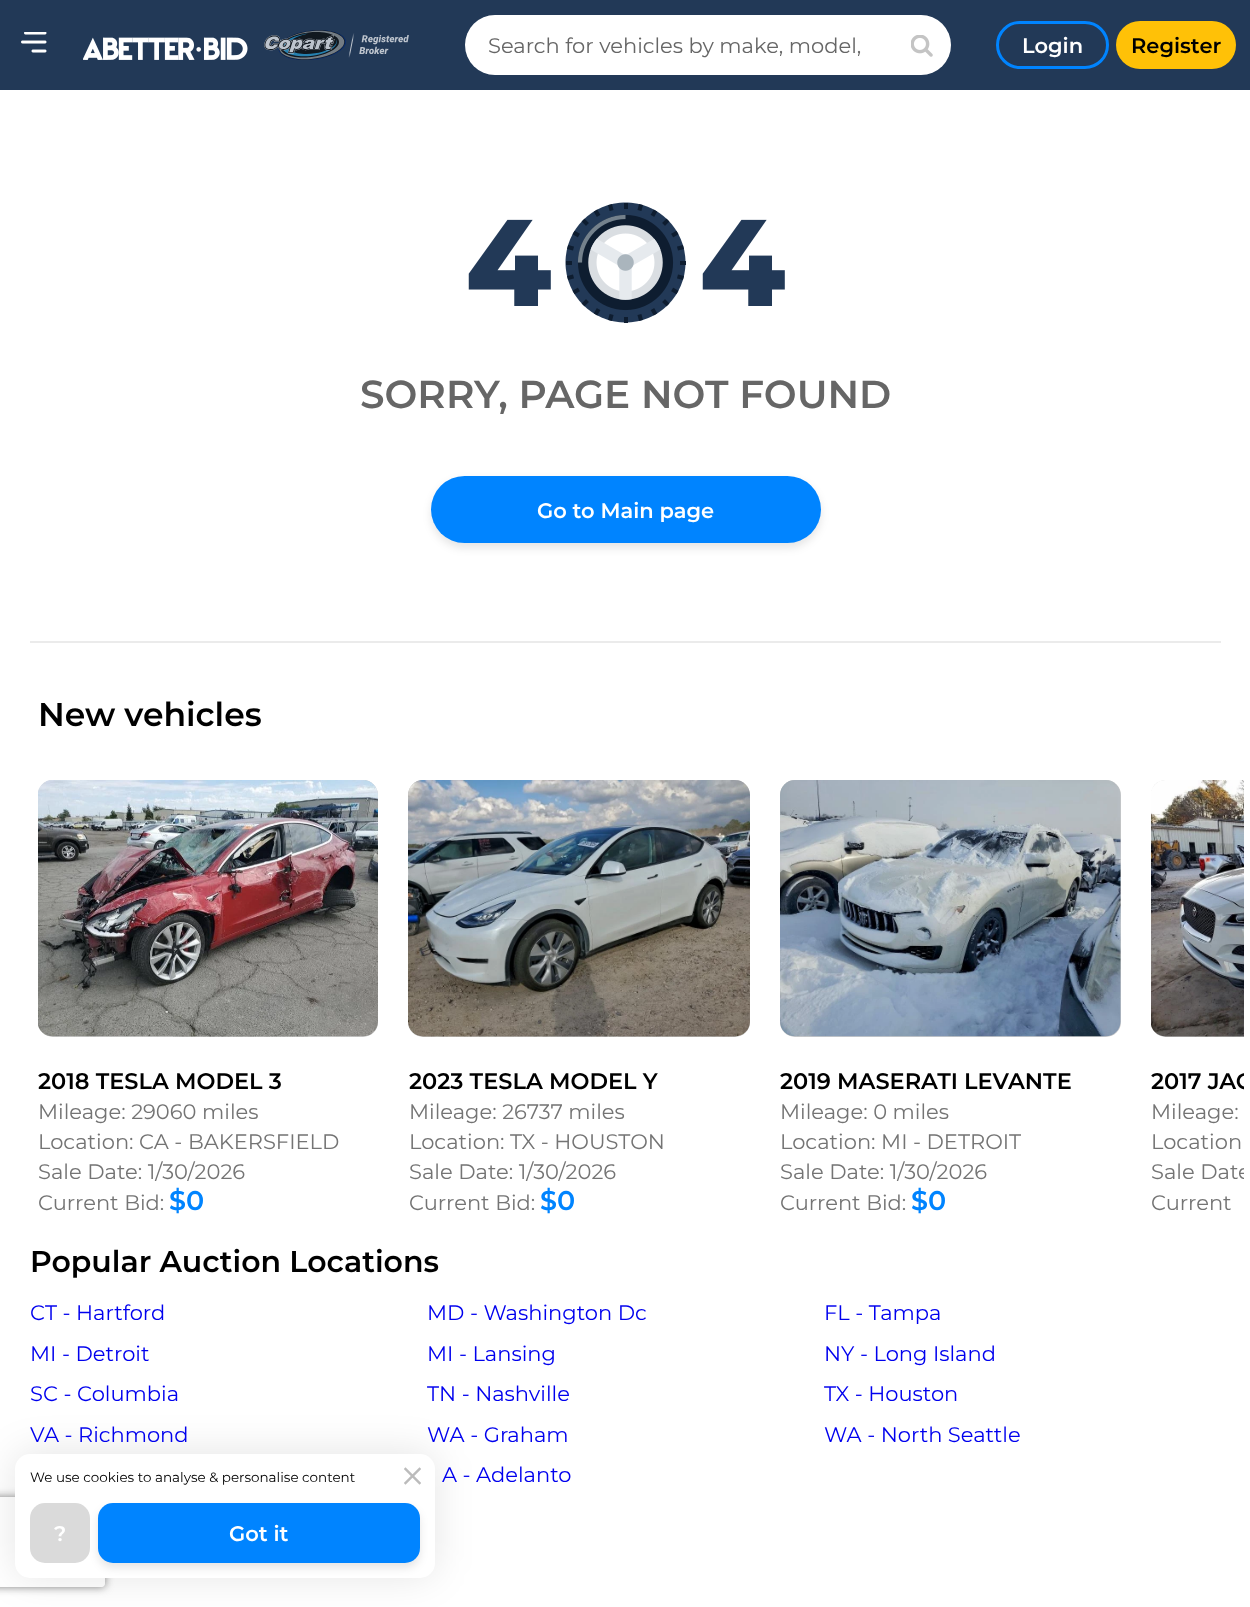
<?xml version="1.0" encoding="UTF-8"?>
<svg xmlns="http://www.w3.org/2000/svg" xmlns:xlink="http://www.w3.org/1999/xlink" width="1250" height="1607">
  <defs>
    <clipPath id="clip1"><path d="M 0 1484 h 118 v 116 h -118 z m -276 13 h 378 c 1.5 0 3 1.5 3 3 v 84 c 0 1.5 -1.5 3 -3 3 h -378 c -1.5 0 -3 -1.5 -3 -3 v -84 c 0 -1.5 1.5 -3 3 -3 z" clip-rule="evenodd" /></clipPath>
    <clipPath id="clip2"><rect x="8" y="780" width="1236" height="461" /></clipPath>
  </defs>
  <rect width="100%" height="100%" fill="#ffffff" />
  <rect width="1250" height="90" fill="#223957" />
  <image x="21" y="32" width="26" height="21" xlink:href="image1.png" />
  <image x="83" y="37" width="165" height="23" xlink:href="image2.png" />
  <image x="264" y="30" width="145" height="30" xlink:href="image3.png" />
  <rect x="465" y="15" width="486" height="60" rx="30" fill="#ffffff" />
  <image x="911" y="35" width="22" height="22" xlink:href="image4.png" />
  <rect x="997.5" y="22.5" width="110" height="45" rx="22.5" fill="none" stroke="#0084ff" stroke-width="3" />
  <rect x="1116" y="21" width="120" height="48" rx="24" fill="#ffc107" />
  <rect x="30" y="641" width="1191" height="2" fill="#ebebeb" />
  <image x="468" y="202" width="317" height="121" xlink:href="image5.png" />
  <rect x="431" y="480" width="390" height="68" rx="34" fill="#000000" fill-opacity="0.1" filter="blur(4px)" />
  <rect x="431" y="476" width="390" height="67" rx="33.5" fill="#0084ff" />
  <rect x="38" y="780" width="340" height="257" rx="15" fill="#cccccc" />
  <image x="38" y="780" width="340" height="257" xlink:href="image6.png" />
  <rect x="408" y="780" width="342" height="257" rx="15" fill="#cccccc" />
  <image x="408" y="780" width="342" height="257" xlink:href="image7.png" />
  <rect x="780" y="780" width="341" height="257" rx="15" fill="#cccccc" />
  <image x="780" y="780" width="341" height="257" xlink:href="image8.png" />
  <path d="M 1166 780 h 78 v 257 h -78 c -8.5 0 -15 -6.5 -15 -15 v -227 c 0 -8.5 6.5 -15 15 -15 z" fill="#cccccc" />
  <image x="1151" y="780" width="93" height="257" xlink:href="image9.png" />
  <rect x="15" y="1452" width="420" height="125" rx="15" fill="#000000" fill-opacity="0.1" filter="blur(19px)" />
  <g clip-path="url(#clip1)">
    <rect x="-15" y="1497" width="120" height="90" rx="3" fill="#808080" filter="blur(4px)" />
  </g>
  <rect x="15" y="1454" width="420" height="124" rx="15" fill="#ffffff" />
  <rect x="30" y="1503" width="60" height="60" rx="15" fill="#dadada" />
  <rect x="98" y="1508" width="322" height="60" rx="15" fill="#000000" fill-opacity="0.1" filter="blur(4px)" />
  <rect x="98" y="1503" width="322" height="60" rx="15" fill="#0084ff" />
  <image x="404" y="1467" width="17" height="18" xlink:href="image10.png" />
  <text x="488" y="53" style="font-family: Montserrat; font-size: 21px; fill: #666666">Search for vehicles by make, model,</text>
  <text x="1022" y="53" style="font-family: Montserrat; font-size: 21px; font-weight: 600; fill: #ffffff">Login</text>
  <text x="1131" y="53" style="font-family: Montserrat; font-size: 21px; font-weight: 600; fill: #000000">Register</text>
  <text x="360" y="408" style="font-family: Montserrat; font-size: 39px; font-weight: 600; fill: #666666">SORRY, PAGE NOT FOUND</text>
  <text x="537" y="518" style="font-family: Montserrat; font-size: 21px; font-weight: 600; fill: #ffffff">Go to Main page</text>
  <text x="38" y="726" style="font-family: Montserrat; font-size: 33px; font-weight: 600; fill: #000000">New vehicles</text>
  <text x="38" y="1089" style="font-family: Montserrat; font-size: 22.5px; font-weight: 600; fill: #000000">2018 TESLA MODEL 3</text>
  <text x="38" y="1119" style="font-family: Montserrat; font-size: 21px; fill: #747474">Mileage: 29060 miles</text>
  <text x="38" y="1149" style="font-family: Montserrat; font-size: 21px; fill: #747474">Location: CA - BAKERSFIELD</text>
  <text x="38" y="1179" style="font-family: Montserrat; font-size: 21px; fill: #747474">Sale Date: 1/30/2026</text>
  <text x="38" y="1210" style="font-family: Montserrat; font-size: 21px; fill: #747474">Current Bid:</text>
  <text x="169" y="1210" style="font-family: Montserrat; font-size: 27px; font-weight: 600; fill: #0084ff">$0</text>
  <text x="409" y="1089" style="font-family: Montserrat; font-size: 22.5px; font-weight: 600; fill: #000000">2023 TESLA MODEL Y</text>
  <text x="409" y="1119" style="font-family: Montserrat; font-size: 21px; fill: #747474">Mileage: 26737 miles</text>
  <text x="409" y="1149" style="font-family: Montserrat; font-size: 21px; fill: #747474">Location: TX - HOUSTON</text>
  <text x="409" y="1179" style="font-family: Montserrat; font-size: 21px; fill: #747474">Sale Date: 1/30/2026</text>
  <text x="409" y="1210" style="font-family: Montserrat; font-size: 21px; fill: #747474">Current Bid:</text>
  <text x="540" y="1210" style="font-family: Montserrat; font-size: 27px; font-weight: 600; fill: #0084ff">$0</text>
  <text x="780" y="1089" style="font-family: Montserrat; font-size: 22.5px; font-weight: 600; fill: #000000">2019 MASERATI LEVANTE</text>
  <text x="780" y="1119" style="font-family: Montserrat; font-size: 21px; fill: #747474">Mileage: 0 miles</text>
  <text x="780" y="1149" style="font-family: Montserrat; font-size: 21px; fill: #747474">Location: MI - DETROIT</text>
  <text x="780" y="1179" style="font-family: Montserrat; font-size: 21px; fill: #747474">Sale Date: 1/30/2026</text>
  <text x="780" y="1210" style="font-family: Montserrat; font-size: 21px; fill: #747474">Current Bid:</text>
  <text x="911" y="1210" style="font-family: Montserrat; font-size: 27px; font-weight: 600; fill: #0084ff">$0</text>
  <g clip-path="url(#clip2)">
    <text x="1151" y="1089" style="font-family: Montserrat; font-size: 22.5px; font-weight: 600; fill: #000000">2017 JAG</text>
  </g>
  <text x="1151" y="1119" style="font-family: Montserrat; font-size: 21px; fill: #747474">Mileage:</text>
  <text x="1151" y="1149" style="font-family: Montserrat; font-size: 21px; fill: #747474">Location</text>
  <g clip-path="url(#clip2)">
    <text x="1151" y="1179" style="font-family: Montserrat; font-size: 21px; fill: #747474">Sale Date</text>
  </g>
  <text x="1151" y="1210" style="font-family: Montserrat; font-size: 21px; fill: #747474">Current</text>
  <text x="30" y="1272" style="font-family: Montserrat; font-size: 30px; font-weight: 600; fill: #000000">Popular Auction Locations</text>
  <text x="30" y="1320" style="font-family: Montserrat; font-size: 21px; fill: #0000ee">CT - Hartford</text>
  <text x="427" y="1320" style="font-family: Montserrat; font-size: 21px; fill: #0000ee">MD - Washington Dc</text>
  <text x="824" y="1320" style="font-family: Montserrat; font-size: 21px; fill: #0000ee">FL - Tampa</text>
  <text x="30" y="1361" style="font-family: Montserrat; font-size: 21px; fill: #0000ee">MI - Detroit</text>
  <text x="427" y="1361" style="font-family: Montserrat; font-size: 21px; fill: #0000ee">MI - Lansing</text>
  <text x="824" y="1361" style="font-family: Montserrat; font-size: 21px; fill: #0000ee">NY - Long Island</text>
  <text x="30" y="1401" style="font-family: Montserrat; font-size: 21px; fill: #0000ee">SC - Columbia</text>
  <text x="427" y="1401" style="font-family: Montserrat; font-size: 21px; fill: #0000ee">TN - Nashville</text>
  <text x="824" y="1401" style="font-family: Montserrat; font-size: 21px; fill: #0000ee">TX - Houston</text>
  <text x="30" y="1442" style="font-family: Montserrat; font-size: 21px; fill: #0000ee">VA - Richmond</text>
  <text x="427" y="1442" style="font-family: Montserrat; font-size: 21px; fill: #0000ee">WA - Graham</text>
  <text x="824" y="1442" style="font-family: Montserrat; font-size: 21px; fill: #0000ee">WA - North Seattle</text>
  <text x="442" y="1482" style="font-family: Montserrat; font-size: 21px; fill: #0000ee">A - Adelanto</text>
  <text x="30" y="1482" style="font-family: Montserrat; font-size: 13.5px; fill: #000000">We use cookies to analyse &amp; personalise content</text>
  <text x="54" y="1541" style="font-family: Montserrat; font-size: 21px; font-weight: 600; fill: #ffffff">?</text>
  <text x="229" y="1541" style="font-family: Montserrat; font-size: 21px; font-weight: 600; fill: #ffffff">Got it</text>
</svg>
